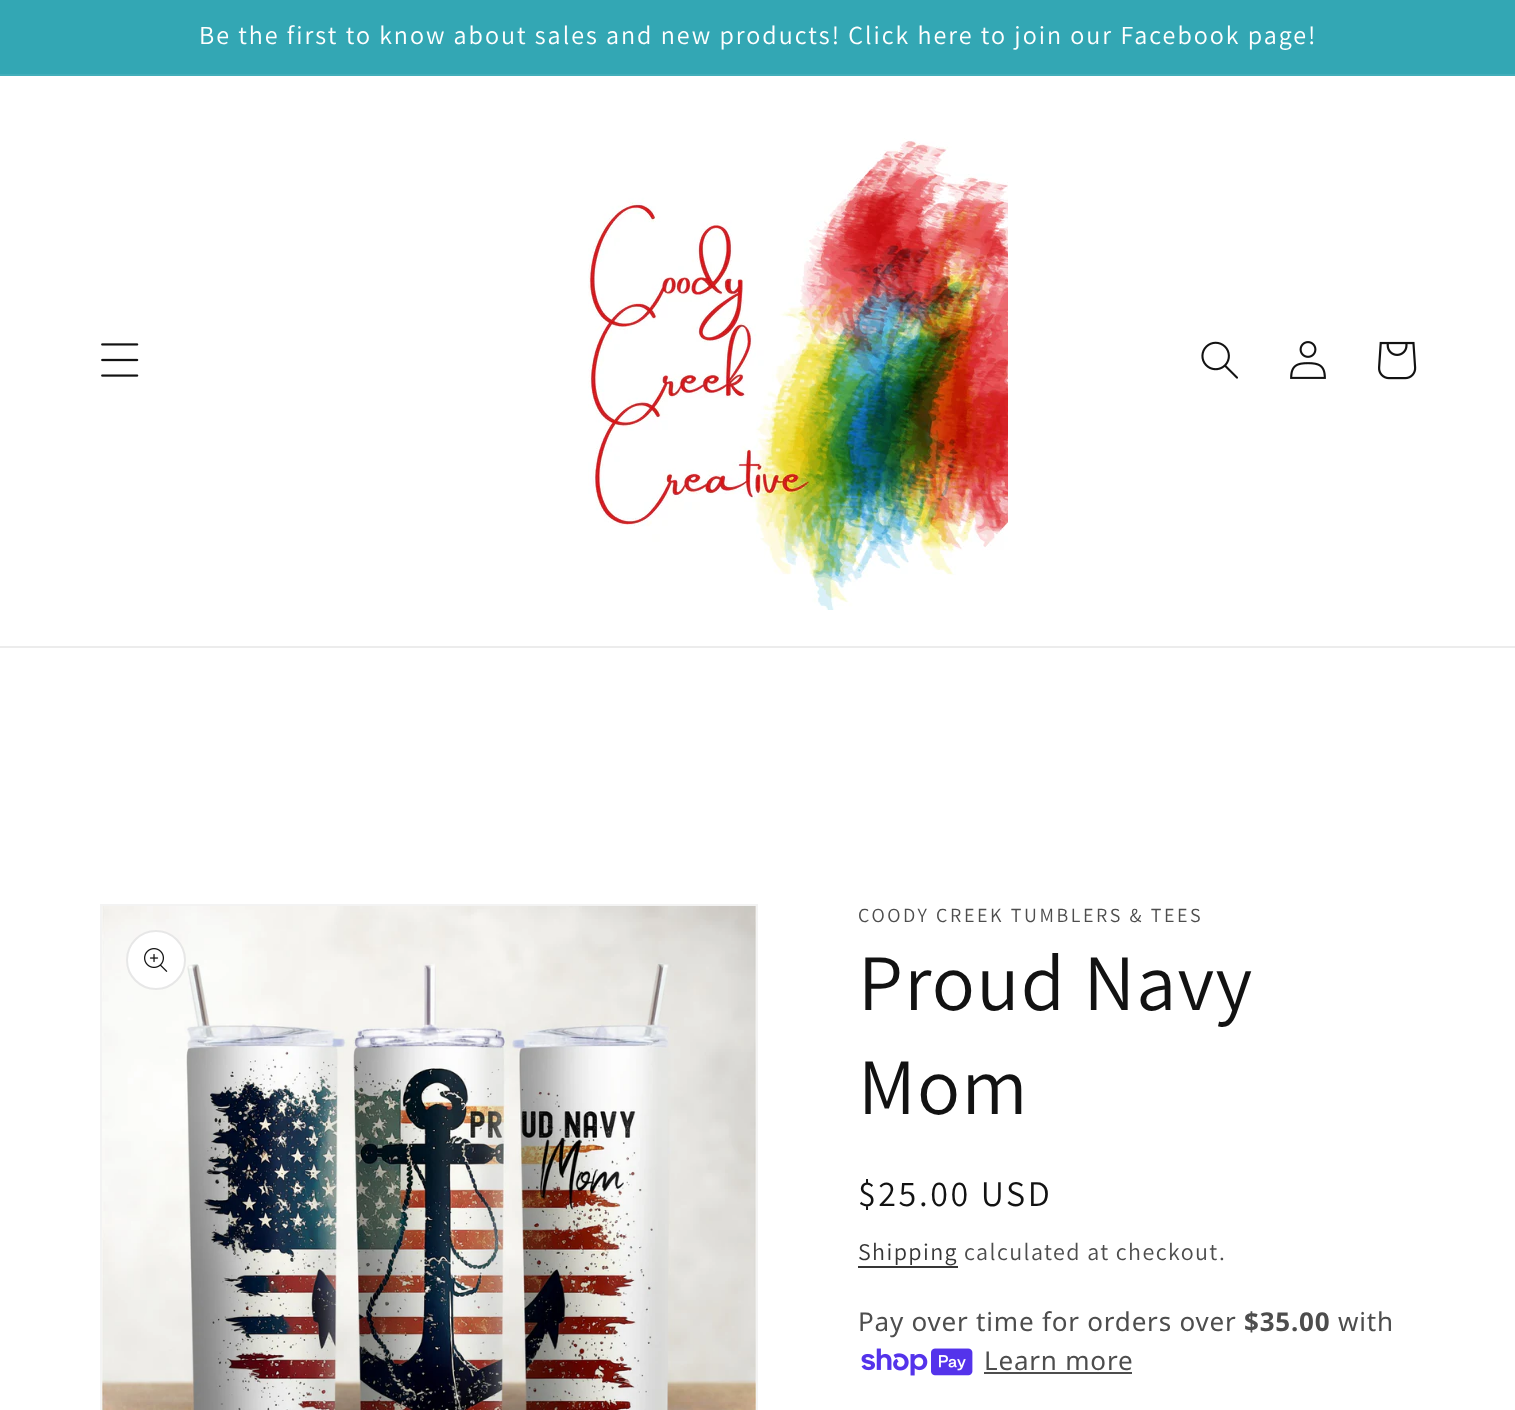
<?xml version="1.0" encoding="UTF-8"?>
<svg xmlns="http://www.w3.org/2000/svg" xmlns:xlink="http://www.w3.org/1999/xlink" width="1515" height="1410">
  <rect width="100%" height="100%" fill="#ffffff" />
  <rect width="1515" height="74" fill="#33a7b4" />
  <rect y="74" width="1515" height="2" fill="#43aeba" />
  <rect y="646" width="1515" height="2" fill="#ececec" />
  <image x="101" y="343" width="38" height="34" xlink:href="image1.png" />
  <image x="588" y="138" width="420" height="472" xlink:href="image2.png" />
  <image x="1201" y="341" width="37" height="38" xlink:href="image3.png" />
  <image x="1290" y="341" width="36" height="38" xlink:href="image4.png" />
  <image x="1378" y="341" width="39" height="39" xlink:href="image5.png" />
  <rect x="101" y="905" width="656" height="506" fill="none" stroke="#f3f3f3" stroke-width="2" />
  <image x="102" y="906" width="654" height="504" xlink:href="image6.png" />
  <circle cx="156" cy="960" r="30" fill="#ffffff" />
  <circle cx="156" cy="960" r="29" fill="none" stroke="#121212" stroke-opacity="0.1" stroke-width="2" />
  <image x="144" y="948" width="24" height="24" xlink:href="image7.png" />
  <rect x="858" y="1266" width="100" height="2" fill="#363636" />
  <image x="861" y="1348" width="112" height="28" xlink:href="image8.png" />
  <rect x="984" y="1372" width="148" height="2" fill="#4d4d4d" />
  <text x="199" y="44" style="font-family: Assistant; font-size: 26px; letter-spacing: 2px; fill: #ffffff">Be the first to know about sales and new products! Click here to join our Facebook page!</text>
  <text x="858" y="922" style="font-family: Assistant; font-size: 20px; letter-spacing: 2.6px; fill: #4d4d4d">COODY CREEK TUMBLERS &amp; TEES</text>
  <text x="858" y="1010" style="font-family: Assistant; font-size: 80px; letter-spacing: 1.25px; fill: #121212">Proud Navy</text>
  <text x="858" y="1114" style="font-family: Assistant; font-size: 80px; letter-spacing: 1.25px; fill: #121212">Mom</text>
  <text x="858" y="1206" style="font-family: Assistant; font-size: 36px; letter-spacing: 2.6px; fill: #121212">$25.00 USD</text>
  <text x="858" y="1260" style="font-family: Assistant; font-size: 24px; letter-spacing: 1.4px; fill: #363636">Shipping</text>
  <text x="964" y="1260" style="font-family: Assistant; font-size: 24px; letter-spacing: 1.4px; fill: #4d4d4d">calculated at checkout.</text>
  <text x="858" y="1331" style="font-family: Noto Sans; font-size: 26px; letter-spacing: 0.8px; fill: #4d4d4d">Pay over time for orders over</text>
  <text x="1244" y="1331" style="font-family: Noto Sans; font-size: 26px; font-weight: bold; letter-spacing: 0.8px; fill: #4d4d4d">$35.00</text>
  <text x="1338" y="1331" style="font-family: Noto Sans; font-size: 26px; letter-spacing: 0.8px; fill: #4d4d4d">with</text>
  <text x="984" y="1370" style="font-family: Noto Sans; font-size: 26px; letter-spacing: 0.8px; fill: #4d4d4d">Learn more</text>
</svg>
